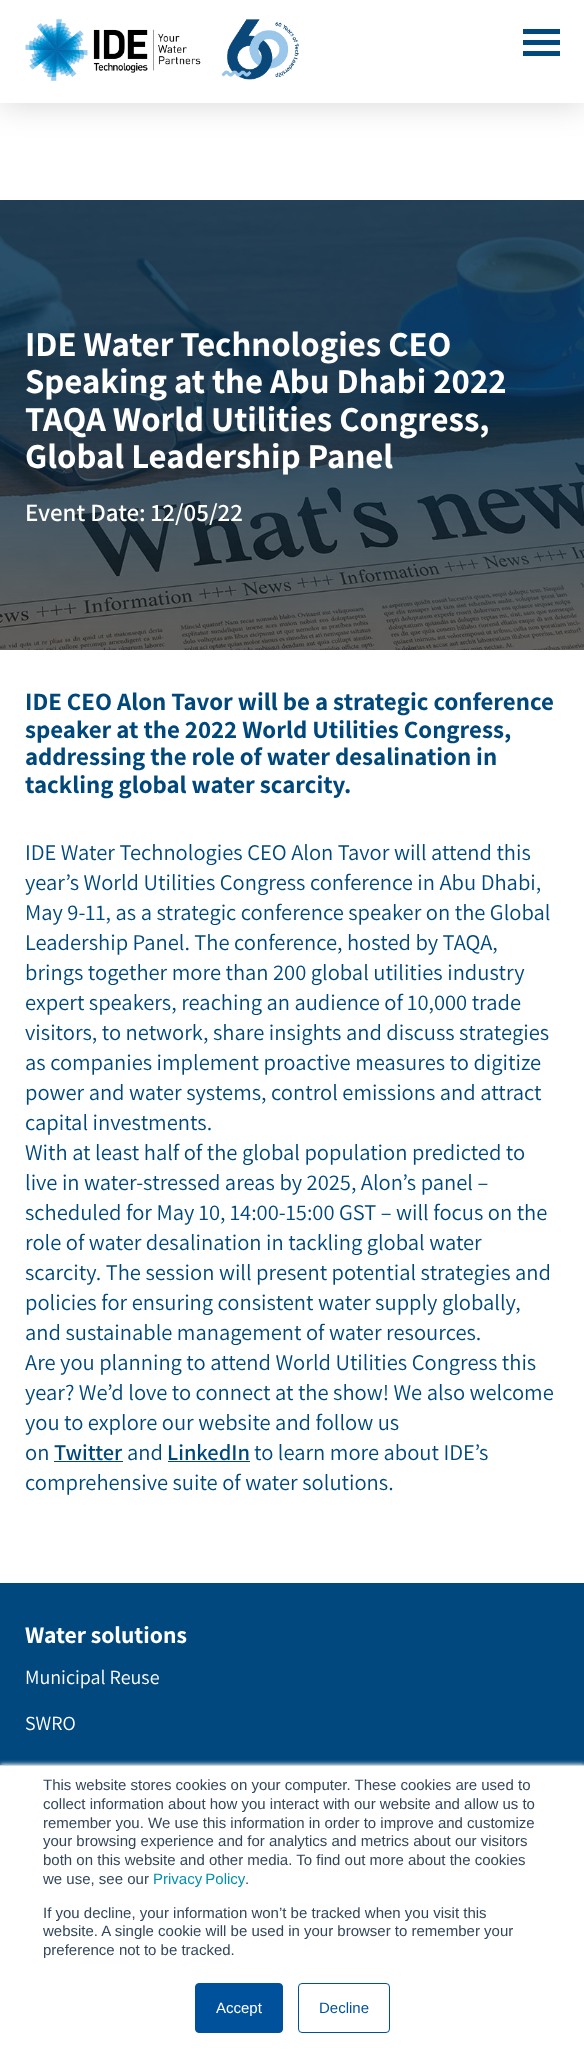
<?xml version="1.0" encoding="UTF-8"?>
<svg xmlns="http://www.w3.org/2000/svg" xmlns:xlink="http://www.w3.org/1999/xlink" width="584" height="2057">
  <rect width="100%" height="100%" fill="#ffffff" />
  <rect y="1" width="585" height="103" fill="#000000" fill-opacity="0.16" filter="blur(16px)" />
  <rect width="584" height="103" fill="#ffffff" />
  <image x="25" y="18" width="274" height="64" xlink:href="image1.png" />
  <rect x="523" y="29" width="37" height="5" fill="#00487d" />
  <rect x="523" y="40" width="37" height="5" fill="#00487d" />
  <rect x="523" y="51" width="37" height="5" fill="#00487d" />
  <image x="0" y="200" width="584" height="450" xlink:href="image2.png" />
  <rect x="54" y="1461" width="69" height="1" fill="#00487c" />
  <rect x="168" y="1461" width="82" height="1" fill="#00487c" />
  <rect y="1583" width="584" height="182" fill="#00487d" />
  <rect y="1764" width="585" height="292" fill="#eaf0f6" filter="blur(2px)" />
  <rect y="1766" width="584" height="291" fill="#ffffff" />
  <rect y="1765" width="584" height="1" fill="#cbd6e2" />
  <rect x="195.5" y="1983.5" width="87" height="49" rx="3.5" fill="#00519b" stroke="#00519b" />
  <rect x="298.5" y="1983.5" width="91" height="49" rx="3.5" fill="none" stroke="#00519b" />
  <text x="25" y="356" style="font-family: Assistant; font-size: 35px; font-weight: bold; fill: #ffffff">IDE Water Technologies CEO</text>
  <text x="25" y="393" style="font-family: Assistant; font-size: 35px; font-weight: bold; fill: #ffffff">Speaking at the Abu Dhabi 2022</text>
  <text x="25" y="431" style="font-family: Assistant; font-size: 35px; font-weight: bold; fill: #ffffff">TAQA World Utilities Congress,</text>
  <text x="25" y="468" style="font-family: Assistant; font-size: 35px; font-weight: bold; fill: #ffffff">Global Leadership Panel</text>
  <text x="25" y="521" style="font-family: Assistant; font-size: 25px; font-weight: 600; fill: #ffffff">Event Date: 12/05/22</text>
  <text x="25" y="710" style="font-family: Assistant; font-size: 25px; font-weight: bold; fill: #00487c">IDE CEO Alon Tavor will be a strategic conference</text>
  <text x="25" y="738" style="font-family: Assistant; font-size: 25px; font-weight: bold; fill: #00487c">speaker at the 2022 World Utilities Congress,</text>
  <text x="25" y="765" style="font-family: Assistant; font-size: 25px; font-weight: bold; fill: #00487c">addressing the role of water desalination in</text>
  <text x="25" y="793" style="font-family: Assistant; font-size: 25px; font-weight: bold; fill: #00487c">tackling global water scarcity.</text>
  <text x="25" y="860" style="font-family: Assistant; font-size: 22.5px; fill: #00487c">IDE Water Technologies CEO Alon Tavor will attend this</text>
  <text x="25" y="890" style="font-family: Assistant; font-size: 22.5px; fill: #00487c">year’s World Utilities Congress conference in Abu Dhabi,</text>
  <text x="25" y="920" style="font-family: Assistant; font-size: 22.5px; fill: #00487c">May 9-11, as a strategic conference speaker on the Global</text>
  <text x="25" y="950" style="font-family: Assistant; font-size: 22.5px; fill: #00487c">Leadership Panel. The conference, hosted by TAQA,</text>
  <text x="25" y="980" style="font-family: Assistant; font-size: 22.5px; fill: #00487c">brings together more than 200 global utilities industry</text>
  <text x="25" y="1010" style="font-family: Assistant; font-size: 22.5px; fill: #00487c">expert speakers, reaching an audience of 10,000 trade</text>
  <text x="25" y="1040" style="font-family: Assistant; font-size: 22.5px; fill: #00487c">visitors, to network, share insights and discuss strategies</text>
  <text x="25" y="1070" style="font-family: Assistant; font-size: 22.5px; fill: #00487c">as companies implement proactive measures to digitize</text>
  <text x="25" y="1100" style="font-family: Assistant; font-size: 22.5px; fill: #00487c">power and water systems, control emissions and attract</text>
  <text x="25" y="1130" style="font-family: Assistant; font-size: 22.5px; fill: #00487c">capital investments.</text>
  <text x="25" y="1160" style="font-family: Assistant; font-size: 22.5px; fill: #00487c">With at least half of the global population predicted to</text>
  <text x="25" y="1190" style="font-family: Assistant; font-size: 22.5px; fill: #00487c">live in water-stressed areas by 2025, Alon’s panel –</text>
  <text x="25" y="1220" style="font-family: Assistant; font-size: 22.5px; fill: #00487c">scheduled for May 10, 14:00-15:00 GST – will focus on the</text>
  <text x="25" y="1250" style="font-family: Assistant; font-size: 22.5px; fill: #00487c">role of water desalination in tackling global water</text>
  <text x="25" y="1280" style="font-family: Assistant; font-size: 22.5px; fill: #00487c">scarcity. The session will present potential strategies and</text>
  <text x="25" y="1310" style="font-family: Assistant; font-size: 22.5px; fill: #00487c">policies for ensuring consistent water supply globally,</text>
  <text x="25" y="1340" style="font-family: Assistant; font-size: 22.5px; fill: #00487c">and sustainable management of water resources.</text>
  <text x="25" y="1370" style="font-family: Assistant; font-size: 22.5px; fill: #00487c">Are you planning to attend World Utilities Congress this</text>
  <text x="25" y="1400" style="font-family: Assistant; font-size: 22.5px; fill: #00487c">year? We’d love to connect at the show! We also welcome</text>
  <text x="25" y="1430" style="font-family: Assistant; font-size: 22.5px; fill: #00487c">you to explore our website and follow us</text>
  <text x="25" y="1460" style="font-family: Assistant; font-size: 22.5px; fill: #00487c">on</text>
  <text x="54" y="1460" style="font-family: Assistant; font-size: 22.5px; font-weight: 600; fill: #00487c">Twitter</text>
  <text x="127" y="1460" style="font-family: Assistant; font-size: 22.5px; fill: #00487c">and</text>
  <text x="167" y="1460" style="font-family: Assistant; font-size: 22.5px; font-weight: 600; fill: #00487c">LinkedIn</text>
  <text x="254" y="1460" style="font-family: Assistant; font-size: 22.5px; fill: #00487c">to learn more about IDE’s</text>
  <text x="25" y="1490" style="font-family: Assistant; font-size: 22.5px; fill: #00487c">comprehensive suite of water solutions.</text>
  <text x="25" y="1643" style="font-family: Assistant; font-size: 23.75px; font-weight: bold; fill: #ffffff">Water solutions</text>
  <text x="25" y="1684" style="font-family: Assistant; font-size: 20px; fill: #ffffff">Municipal Reuse</text>
  <text x="25" y="1730" style="font-family: Assistant; font-size: 20px; fill: #ffffff">SWRO</text>
  <text x="43" y="1790" style="font-family: Liberation Sans; font-size: 15px; fill: #33475b">This website stores cookies on your computer. These cookies are used to</text>
  <text x="43" y="1809" style="font-family: Liberation Sans; font-size: 15px; fill: #33475b">collect information about how you interact with our website and allow us to</text>
  <text x="43" y="1828" style="font-family: Liberation Sans; font-size: 15px; fill: #33475b">remember you. We use this information in order to improve and customize</text>
  <text x="43" y="1846" style="font-family: Liberation Sans; font-size: 15px; fill: #33475b">your browsing experience and for analytics and metrics about our visitors</text>
  <text x="43" y="1865" style="font-family: Liberation Sans; font-size: 15px; fill: #33475b">both on this website and other media. To find out more about the cookies</text>
  <text x="43" y="1884" style="font-family: Liberation Sans; font-size: 15px; fill: #33475b">we use, see our</text>
  <text x="153" y="1884" word-spacing="-1" style="font-family: Liberation Sans; font-size: 15px; fill: #0091ae">Privacy Policy</text>
  <text x="245" y="1884" style="font-family: Liberation Sans; font-size: 15px; fill: #33475b">.</text>
  <text x="43" y="1918" style="font-family: Liberation Sans; font-size: 15px; fill: #33475b">If you decline, your information won’t be tracked when you visit this</text>
  <text x="43" y="1936" style="font-family: Liberation Sans; font-size: 15px; fill: #33475b">website. A single cookie will be used in your browser to remember your</text>
  <text x="43" y="1955" style="font-family: Liberation Sans; font-size: 15px; fill: #33475b">preference not to be tracked.</text>
  <text x="216" y="2013" style="font-family: Liberation Sans; font-size: 15px; fill: #ffffff">Accept</text>
  <text x="319" y="2013" style="font-family: Liberation Sans; font-size: 15px; fill: #00519b">Decline</text>
</svg>
